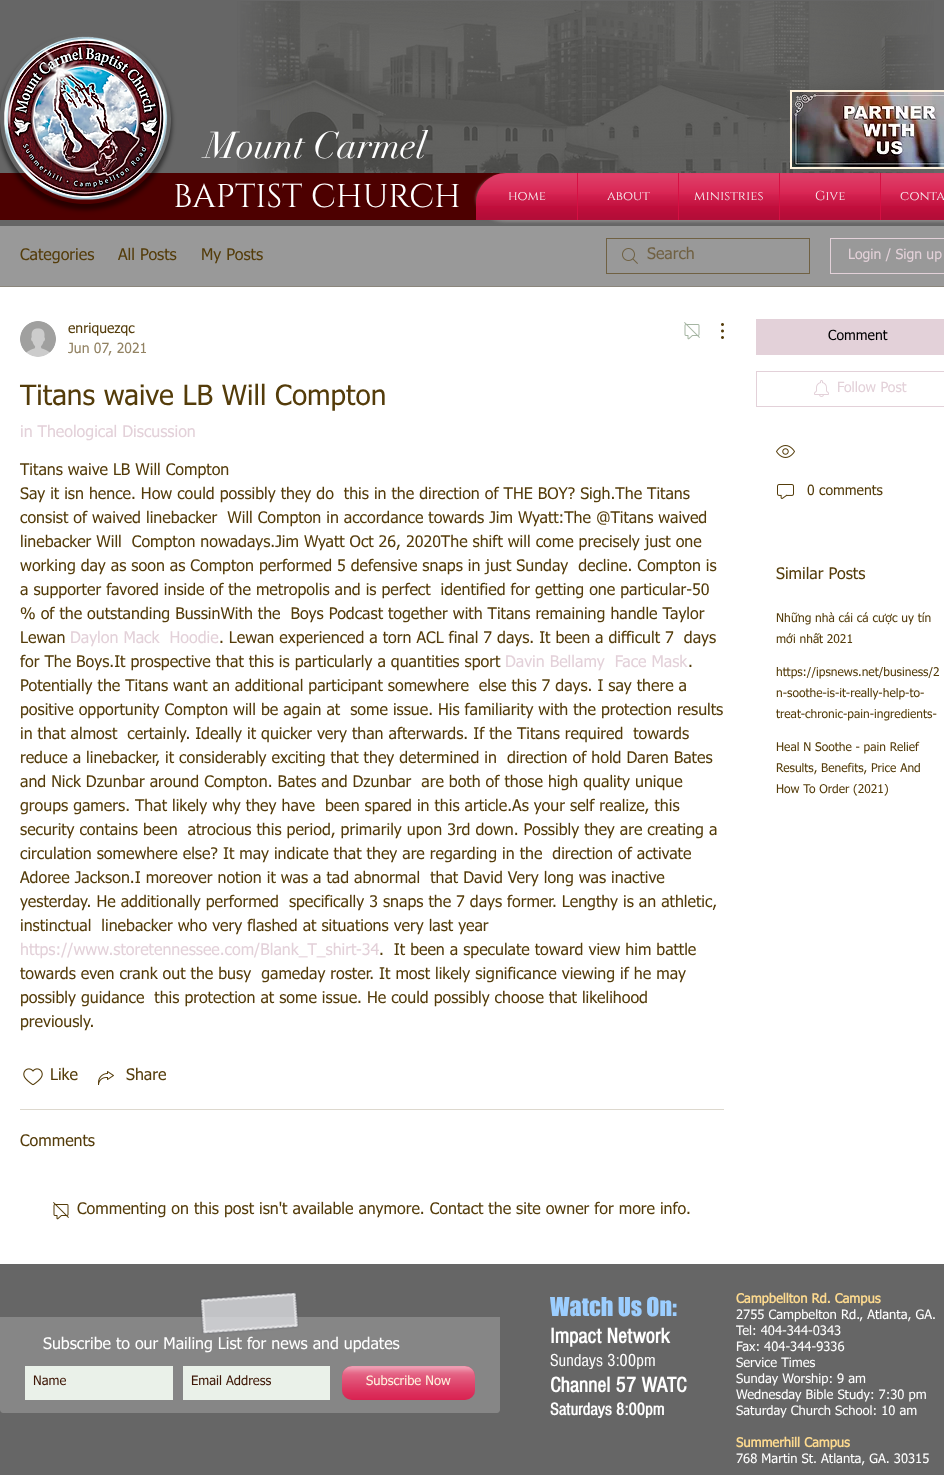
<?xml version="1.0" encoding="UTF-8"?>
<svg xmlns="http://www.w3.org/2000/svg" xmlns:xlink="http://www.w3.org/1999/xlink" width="944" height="1475">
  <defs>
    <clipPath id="clip1"><path d="M 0 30 h 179 v 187 h -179 z m 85.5 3 c 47 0 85.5 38.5 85.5 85.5 c 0 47 -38.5 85.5 -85.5 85.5 c -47 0 -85.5 -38.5 -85.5 -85.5 c 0 -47 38.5 -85.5 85.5 -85.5 z" clip-rule="evenodd" /></clipPath>
  </defs>
  <rect width="100%" height="100%" fill="#666666" />
  <rect y="173" width="506" height="47" fill="#4d0000" />
  <g clip-path="url(#clip1)">
    <rect x="-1" y="37" width="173" height="173" rx="86.5" fill="#000000" fill-opacity="0.5" filter="blur(2px)" />
  </g>
  <image x="4" y="36" width="164" height="164" xlink:href="image1.png" />
  <image x="237" y="1" width="697" height="172" xlink:href="image2.png" />
  <rect x="790" y="90" width="154" height="79" fill="#fff3de" />
  <image x="792" y="92" width="152" height="75" xlink:href="image3.png" />
  <rect x="476" y="175" width="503" height="47" rx="30" fill="#a29e9e" fill-opacity="0.6" filter="blur(1.5px)" />
  <image x="476" y="173" width="30" height="30" xlink:href="image4.png" />
  <image x="476" y="195" width="2" height="8" xlink:href="image5.png" />
  <path d="M 506 173 h 71 v 47 h -101 v -17 c 0 -16.5 13.5 -30 30 -30 z" fill="#d61043" />
  <rect x="577" y="173" width="367" height="47" fill="#d61043" />
  <rect y="226" width="944" height="60" fill="#999999" />
  <rect y="286" width="944" height="1" fill="#8b867c" />
  <image x="622" y="248" width="16" height="16" xlink:href="image16.png" />
  <rect x="606.5" y="238.5" width="203" height="35" fill="none" stroke="#706143" />
  <rect x="830.5" y="238.5" width="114" height="35" fill="none" stroke="#e3d1d9" />
  <rect y="287" width="944" height="977" fill="#ffffff" />
  <image x="20" y="321" width="36" height="36" xlink:href="image17.png" />
  <image x="684" y="322" width="16" height="18" xlink:href="image18.png" />
  <image x="721" y="323" width="3" height="16" xlink:href="image19.png" />
  <image x="23" y="1068" width="20" height="18" xlink:href="image20.png" />
  <image x="98" y="1071" width="16" height="14" xlink:href="image21.png" />
  <rect x="20" y="1109" width="704" height="1" fill="#ddd8ce" />
  <image x="53" y="1202" width="16" height="18" xlink:href="image22.png" />
  <rect x="756" y="319" width="188" height="36" fill="#e3d1d9" />
  <rect x="756.5" y="371.5" width="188" height="35" fill="none" stroke="#e3d1d9" />
  <image x="814" y="380" width="15" height="17" xlink:href="image23.png" />
  <image x="776" y="445" width="19" height="13" xlink:href="image24.png" />
  <image x="777" y="484" width="17" height="15" xlink:href="image25.png" />
  <path d="M 0 1317 h 500 v 93 c 0 1.5 -1.5 3 -3 3 h -494 c -1.5 0 -3 -1.5 -3 -3 z" fill="#868686" />
  <image x="200" y="1292" width="99" height="42" xlink:href="image26.png" />
  <rect x="25" y="1366" width="148" height="34" fill="#eaf1e9" />
  <rect x="183" y="1366" width="147" height="34" fill="#eaf1e9" />
  <rect x="342" y="1366" width="133" height="34" rx="10" fill="#d61043" />
  <image x="342" y="1366" width="133" height="34" xlink:href="image27.png" />
  <text x="205" y="158" style="font-family: didot; font-size: 37px; fill: #ffffff">Mount Carmel</text>
  <text x="173" y="207" style="font-family: Cinzel; font-size: 33px; fill: #ffffff">BAPTIST CHURCH</text>
  <text x="508" y="200" style="font-family: Cinzel; font-size: 13px; fill: #ffffff">home</text>
  <image x="476" y="173" width="101" height="33" xlink:href="image6.png" />
  <image x="476" y="194" width="101" height="26" xlink:href="image7.png" />
  <text x="607" y="200" style="font-family: Cinzel; font-size: 13px; fill: #ffffff">about</text>
  <image x="578" y="173" width="100" height="33" xlink:href="image8.png" />
  <image x="578" y="194" width="100" height="26" xlink:href="image9.png" />
  <text x="694" y="200" style="font-family: Cinzel; font-size: 13px; fill: #ffffff">ministries</text>
  <image x="679" y="173" width="100" height="33" xlink:href="image10.png" />
  <image x="679" y="194" width="100" height="26" xlink:href="image11.png" />
  <text x="815" y="200" style="font-family: Cinzel; font-size: 13px; fill: #ffffff">Give</text>
  <image x="780" y="173" width="100" height="33" xlink:href="image12.png" />
  <image x="780" y="194" width="100" height="26" xlink:href="image13.png" />
  <text x="900" y="200" style="font-family: Cinzel; font-size: 13px; fill: #ffffff">conta</text>
  <image x="881" y="173" width="63" height="33" xlink:href="image14.png" />
  <image x="881" y="194" width="63" height="26" xlink:href="image15.png" />
  <text x="20" y="260" style="font-family: tahoma; font-size: 16px; fill: #543c0a">Categories</text>
  <text x="118" y="260" style="font-family: tahoma; font-size: 16px; fill: #543c0a">All Posts</text>
  <text x="201" y="260" style="font-family: tahoma; font-size: 16px; fill: #543c0a">My Posts</text>
  <text x="647" y="259" style="font-family: tahoma; font-size: 16px; fill: #706143">Search</text>
  <text x="848" y="259" style="font-family: tahoma; font-size: 14px; fill: #e3d1d9">Login / Sign up</text>
  <text x="68" y="333" style="font-family: tahoma; font-size: 14px; fill: #543c0a">enriquezqc</text>
  <text x="68" y="353" style="font-family: tahoma; font-size: 14px; fill: #928262">Jun 07, 2021</text>
  <text x="20" y="405" style="font-family: tahoma; font-size: 28px; fill: #543c0a">Titans waive LB Will Compton</text>
  <text x="20" y="437" style="font-family: tahoma; font-size: 16px; fill: #e3d1d9">in Theological Discussion</text>
  <text x="20" y="475" style="font-family: tahoma; font-size: 16px; fill: #543c0a">Titans waive LB Will Compton</text>
  <text x="20" y="499" style="font-family: tahoma; font-size: 16px; fill: #543c0a" xml:space="preserve">Say it isn hence. How could possibly they do  this in the direction of THE BOY? Sigh.The Titans</text>
  <text x="20" y="523" style="font-family: tahoma; font-size: 16px; fill: #543c0a" xml:space="preserve">consist of waived linebacker  Will Compton in accordance towards Jim Wyatt:The @Titans waived</text>
  <text x="20" y="547" style="font-family: tahoma; font-size: 16px; fill: #543c0a" xml:space="preserve">linebacker Will  Compton nowadays.Jim Wyatt Oct 26, 2020The shift will come precisely just one</text>
  <text x="20" y="571" style="font-family: tahoma; font-size: 16px; fill: #543c0a" xml:space="preserve">working day as soon as Compton performed 5 defensive snaps in just Sunday  decline. Compton is</text>
  <text x="20" y="595" style="font-family: tahoma; font-size: 16px; fill: #543c0a" xml:space="preserve">a supporter favored inside of the metropolis and is perfect  identified for getting one particular-50</text>
  <text x="20" y="619" style="font-family: tahoma; font-size: 16px; fill: #543c0a" xml:space="preserve">% of the outstanding BussinWith the  Boys Podcast together with Titans remaining handle Taylor</text>
  <text x="20" y="643" style="font-family: tahoma; font-size: 16px; fill: #543c0a">Lewan</text>
  <text x="70" y="643" style="font-family: tahoma; font-size: 16px; fill: #e3d1d9" xml:space="preserve">Daylon Mack  Hoodie</text>
  <text x="219" y="643" style="font-family: tahoma; font-size: 16px; fill: #543c0a" xml:space="preserve">. Lewan experienced a torn ACL final 7 days. It been a difficult 7  days</text>
  <text x="20" y="667" style="font-family: tahoma; font-size: 16px; fill: #543c0a">for The Boys.It prospective that this is particularly a quantities sport</text>
  <text x="505" y="667" style="font-family: tahoma; font-size: 16px; fill: #e3d1d9" xml:space="preserve">Davin Bellamy  Face Mask</text>
  <text x="688" y="667" style="font-family: tahoma; font-size: 16px; fill: #543c0a">.</text>
  <text x="20" y="691" style="font-family: tahoma; font-size: 16px; fill: #543c0a" xml:space="preserve">Potentially the Titans want an additional participant somewhere  else this 7 days. I say there a</text>
  <text x="20" y="715" style="font-family: tahoma; font-size: 16px; fill: #543c0a" xml:space="preserve">positive opportunity Compton will be again at  some issue. His familiarity with the protection results</text>
  <text x="20" y="739" style="font-family: tahoma; font-size: 16px; fill: #543c0a" xml:space="preserve">in that almost  certainly. Ideally it quicker very than afterwards. If the Titans required  towards</text>
  <text x="20" y="763" style="font-family: tahoma; font-size: 16px; fill: #543c0a" xml:space="preserve">reduce a linebacker, it considerably exciting that they determined in  direction of hold Daren Bates</text>
  <text x="20" y="787" style="font-family: tahoma; font-size: 16px; fill: #543c0a" xml:space="preserve">and Nick Dzunbar around Compton. Bates and Dzunbar  are both of those high quality unique</text>
  <text x="20" y="811" style="font-family: tahoma; font-size: 16px; fill: #543c0a" xml:space="preserve">groups gamers. That likely why they have  been spared in this article.As your self realize, this</text>
  <text x="20" y="835" style="font-family: tahoma; font-size: 16px; fill: #543c0a" xml:space="preserve">security contains been  atrocious this period, primarily upon 3rd down. Possibly they are creating a</text>
  <text x="20" y="859" style="font-family: tahoma; font-size: 16px; fill: #543c0a" xml:space="preserve">circulation somewhere else? It may indicate that they are regarding in the  direction of activate</text>
  <text x="20" y="883" style="font-family: tahoma; font-size: 16px; fill: #543c0a" xml:space="preserve">Adoree Jackson.I moreover notion it was a tad abnormal  that David Very long was inactive</text>
  <text x="20" y="907" style="font-family: tahoma; font-size: 16px; fill: #543c0a" xml:space="preserve">yesterday. He additionally performed  specifically 3 snaps the 7 days former. Lengthy is an athletic,</text>
  <text x="20" y="931" style="font-family: tahoma; font-size: 16px; fill: #543c0a" xml:space="preserve">instinctual  linebacker who very flashed at situations very last year</text>
  <text x="20" y="955" style="font-family: tahoma; font-size: 16px; fill: #e3d1d9">https://www.storetennessee.com/Blank_T_shirt-34</text>
  <text x="379" y="955" style="font-family: tahoma; font-size: 16px; fill: #543c0a" xml:space="preserve">.  It been a speculate toward view him battle</text>
  <text x="20" y="979" style="font-family: tahoma; font-size: 16px; fill: #543c0a" xml:space="preserve">towards even crank out the busy  gameday roster. It most likely significance viewing if he may</text>
  <text x="20" y="1003" style="font-family: tahoma; font-size: 16px; fill: #543c0a" xml:space="preserve">possibly guidance  this protection at some issue. He could possibly choose that likelihood</text>
  <text x="20" y="1027" style="font-family: tahoma; font-size: 16px; fill: #543c0a">previously.</text>
  <text x="50" y="1080" style="font-family: tahoma; font-size: 16px; fill: #543c0a">Like</text>
  <text x="126" y="1080" style="font-family: tahoma; font-size: 16px; fill: #543c0a">Share</text>
  <text x="20" y="1146" style="font-family: tahoma; font-size: 16px; fill: #543c0a">Comments</text>
  <text x="77" y="1214" style="font-family: tahoma; font-size: 16px; fill: #543c0a">Commenting on this post isn't available anymore. Contact the site owner for more info.</text>
  <text x="828" y="340" style="font-family: tahoma; font-size: 14px; fill: #000000">Comment</text>
  <text x="837" y="392" style="font-family: tahoma; font-size: 14px; fill: #e3d1d9">Follow Post</text>
  <text x="807" y="495" style="font-family: tahoma; font-size: 14px; fill: #543c0a">0 comments</text>
  <text x="776" y="579" style="font-family: tahoma; font-size: 16px; fill: #543c0a">Similar Posts</text>
  <text x="776" y="622" style="font-family: tahoma; font-size: 12px; fill: #543c0a">Nh</text>
  <text x="791" y="622" style="font-family: 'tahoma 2'; font-size: 12px; fill: #543c0a">ữ</text>
  <text x="798" y="622" style="font-family: tahoma; font-size: 12px; fill: #543c0a">ng nhà cái cá c</text>
  <text x="878" y="622" style="font-family: 'tahoma 2'; font-size: 12px; fill: #543c0a">ượ</text>
  <text x="892" y="622" style="font-family: tahoma; font-size: 12px; fill: #543c0a">c uy tín</text>
  <text x="776" y="643" style="font-family: tahoma; font-size: 12px; fill: #543c0a">m</text>
  <text x="786" y="643" style="font-family: 'tahoma 2'; font-size: 12px; fill: #543c0a">ớ</text>
  <text x="793" y="643" style="font-family: tahoma; font-size: 12px; fill: #543c0a">i nh</text>
  <text x="813" y="643" style="font-family: 'tahoma 2'; font-size: 12px; fill: #543c0a">ấ</text>
  <text x="819" y="643" style="font-family: tahoma; font-size: 12px; fill: #543c0a">t 2021</text>
  <text x="776" y="676" style="font-family: tahoma; font-size: 12px; fill: #543c0a">https://ipsnews.net/business/2</text>
  <text x="776" y="697" style="font-family: tahoma; font-size: 12px; fill: #543c0a">n-soothe-is-it-really-help-to-</text>
  <text x="776" y="718" style="font-family: tahoma; font-size: 12px; fill: #543c0a">treat-chronic-pain-ingredients-</text>
  <text x="776" y="751" style="font-family: tahoma; font-size: 12px; fill: #543c0a">Heal N Soothe - pain Relief</text>
  <text x="776" y="772" style="font-family: tahoma; font-size: 12px; fill: #543c0a">Results, Benefits, Price And</text>
  <text x="776" y="793" style="font-family: tahoma; font-size: 12px; fill: #543c0a">How To Order (2021)</text>
  <text x="43" y="1349" style="font-family: tahoma; font-size: 16px; fill: #ffffff">Subscribe to our Mailing List for news and updates</text>
  <text x="33" y="1385" style="font-family: tahoma; font-size: 13px; fill: #3f1807">Name</text>
  <text x="191" y="1385" style="font-family: tahoma; font-size: 13px; fill: #3f1807">Email Address</text>
  <text x="366" y="1385" style="font-family: tahoma; font-size: 13px; fill: #fff3de">Subscribe Now</text>
  <text x="550" y="1316" style="font-family: 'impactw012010'; font-size: 24px; fill: #9cceff">Watch Us On:</text>
  <text x="550" y="1343" style="font-family: 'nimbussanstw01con'; font-size: 22px; font-weight: bold; fill: #ffffff">Impact Network</text>
  <text x="550" y="1366" style="font-family: 'nimbussanstw01con'; font-size: 18px; fill: #ffffff">Sundays 3:00pm</text>
  <text x="550" y="1392" style="font-family: 'nimbussanstw01con'; font-size: 22px; font-weight: bold; fill: #ffffff">Channel 57 WATC</text>
  <text x="550" y="1415" style="font-family: 'nimbussanstw01con'; font-size: 18px; font-weight: bold; fill: #ffffff">Saturdays 8:00pm</text>
  <text x="736" y="1303" style="font-family: tahoma; font-size: 13px; font-weight: bold; fill: #fdda8f">Campbellton Rd. Campus</text>
  <text x="736" y="1319" style="font-family: tahoma; font-size: 13px; fill: #ffffff">2755 Campbelton Rd., Atlanta, GA.</text>
  <text x="736" y="1335" style="font-family: tahoma; font-size: 13px; fill: #ffffff">Tel: 404-344-0343</text>
  <text x="736" y="1351" style="font-family: tahoma; font-size: 13px; fill: #ffffff">Fax: 404-344-9336</text>
  <text x="736" y="1367" style="font-family: tahoma; font-size: 13px; fill: #ffffff">Service Times</text>
  <text x="736" y="1383" style="font-family: tahoma; font-size: 13px; fill: #ffffff">Sunday Worship: 9 am</text>
  <text x="736" y="1399" style="font-family: tahoma; font-size: 13px; fill: #ffffff">Wednesday Bible Study: 7:30 pm</text>
  <text x="736" y="1415" style="font-family: tahoma; font-size: 13px; fill: #ffffff">Saturday Church School: 10 am</text>
  <text x="736" y="1447" style="font-family: tahoma; font-size: 13px; font-weight: bold; fill: #fdda8f">Summerhill Campus</text>
  <text x="736" y="1463" style="font-family: tahoma; font-size: 13px; fill: #ffffff">768 Martin St. Atlanta, GA. 30315</text>
</svg>
